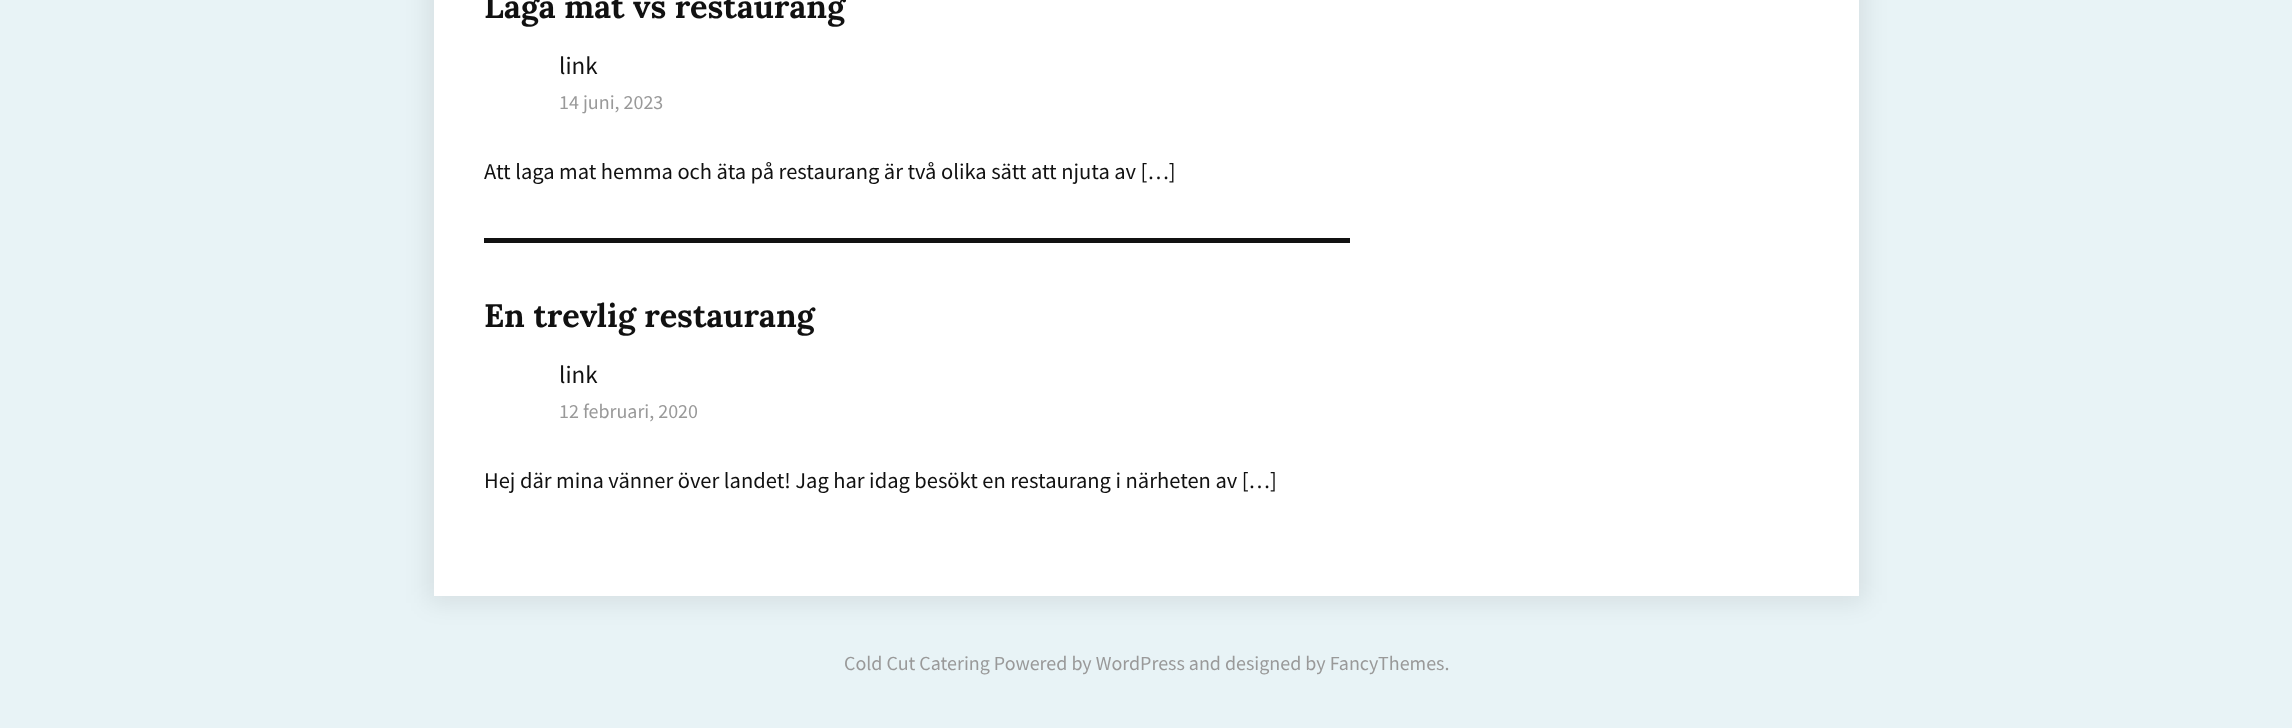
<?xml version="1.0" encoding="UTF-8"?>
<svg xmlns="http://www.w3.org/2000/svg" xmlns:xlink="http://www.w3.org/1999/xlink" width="2292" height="728">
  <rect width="100%" height="100%" fill="#e8f3f6" />
  <rect x="428" y="-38" width="1437" height="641" fill="#000000" fill-opacity="0.08" filter="blur(12.5px)" />
  <rect x="434" width="1425" height="596" fill="#ffffff" />
  <rect x="484" y="238" width="866" height="5" fill="#111111" />
  <text x="484" y="18" style="font-family: Lora; font-size: 32.5px; font-weight: bold; fill: #111111">Laga mat vs restaurang</text>
  <text x="559" y="74" style="font-family: Source Sans Pro; font-size: 25px; fill: #111111">link</text>
  <text x="559" y="109" style="font-family: Source Sans Pro; font-size: 20px; fill: #999999">14 juni, 2023</text>
  <text x="484" y="179" style="font-family: Source Sans Pro; font-size: 22.5px; fill: #111111">Att laga mat hemma och äta på restaurang är två olika sätt att njuta av […]</text>
  <text x="484" y="327" style="font-family: Lora; font-size: 32.5px; font-weight: bold; fill: #111111">En trevlig restaurang</text>
  <text x="559" y="383" style="font-family: Source Sans Pro; font-size: 25px; fill: #111111">link</text>
  <text x="559" y="418" style="font-family: Source Sans Pro; font-size: 20px; fill: #999999">12 februari, 2020</text>
  <text x="484" y="488" style="font-family: Source Sans Pro; font-size: 22.5px; fill: #111111">Hej där mina vänner över landet! Jag har idag besökt en restaurang i närheten av […]</text>
  <text x="844" y="670" style="font-family: Source Sans Pro; font-size: 20px; fill: #999999">Cold Cut Catering Powered by WordPress and designed by FancyThemes.</text>
</svg>
